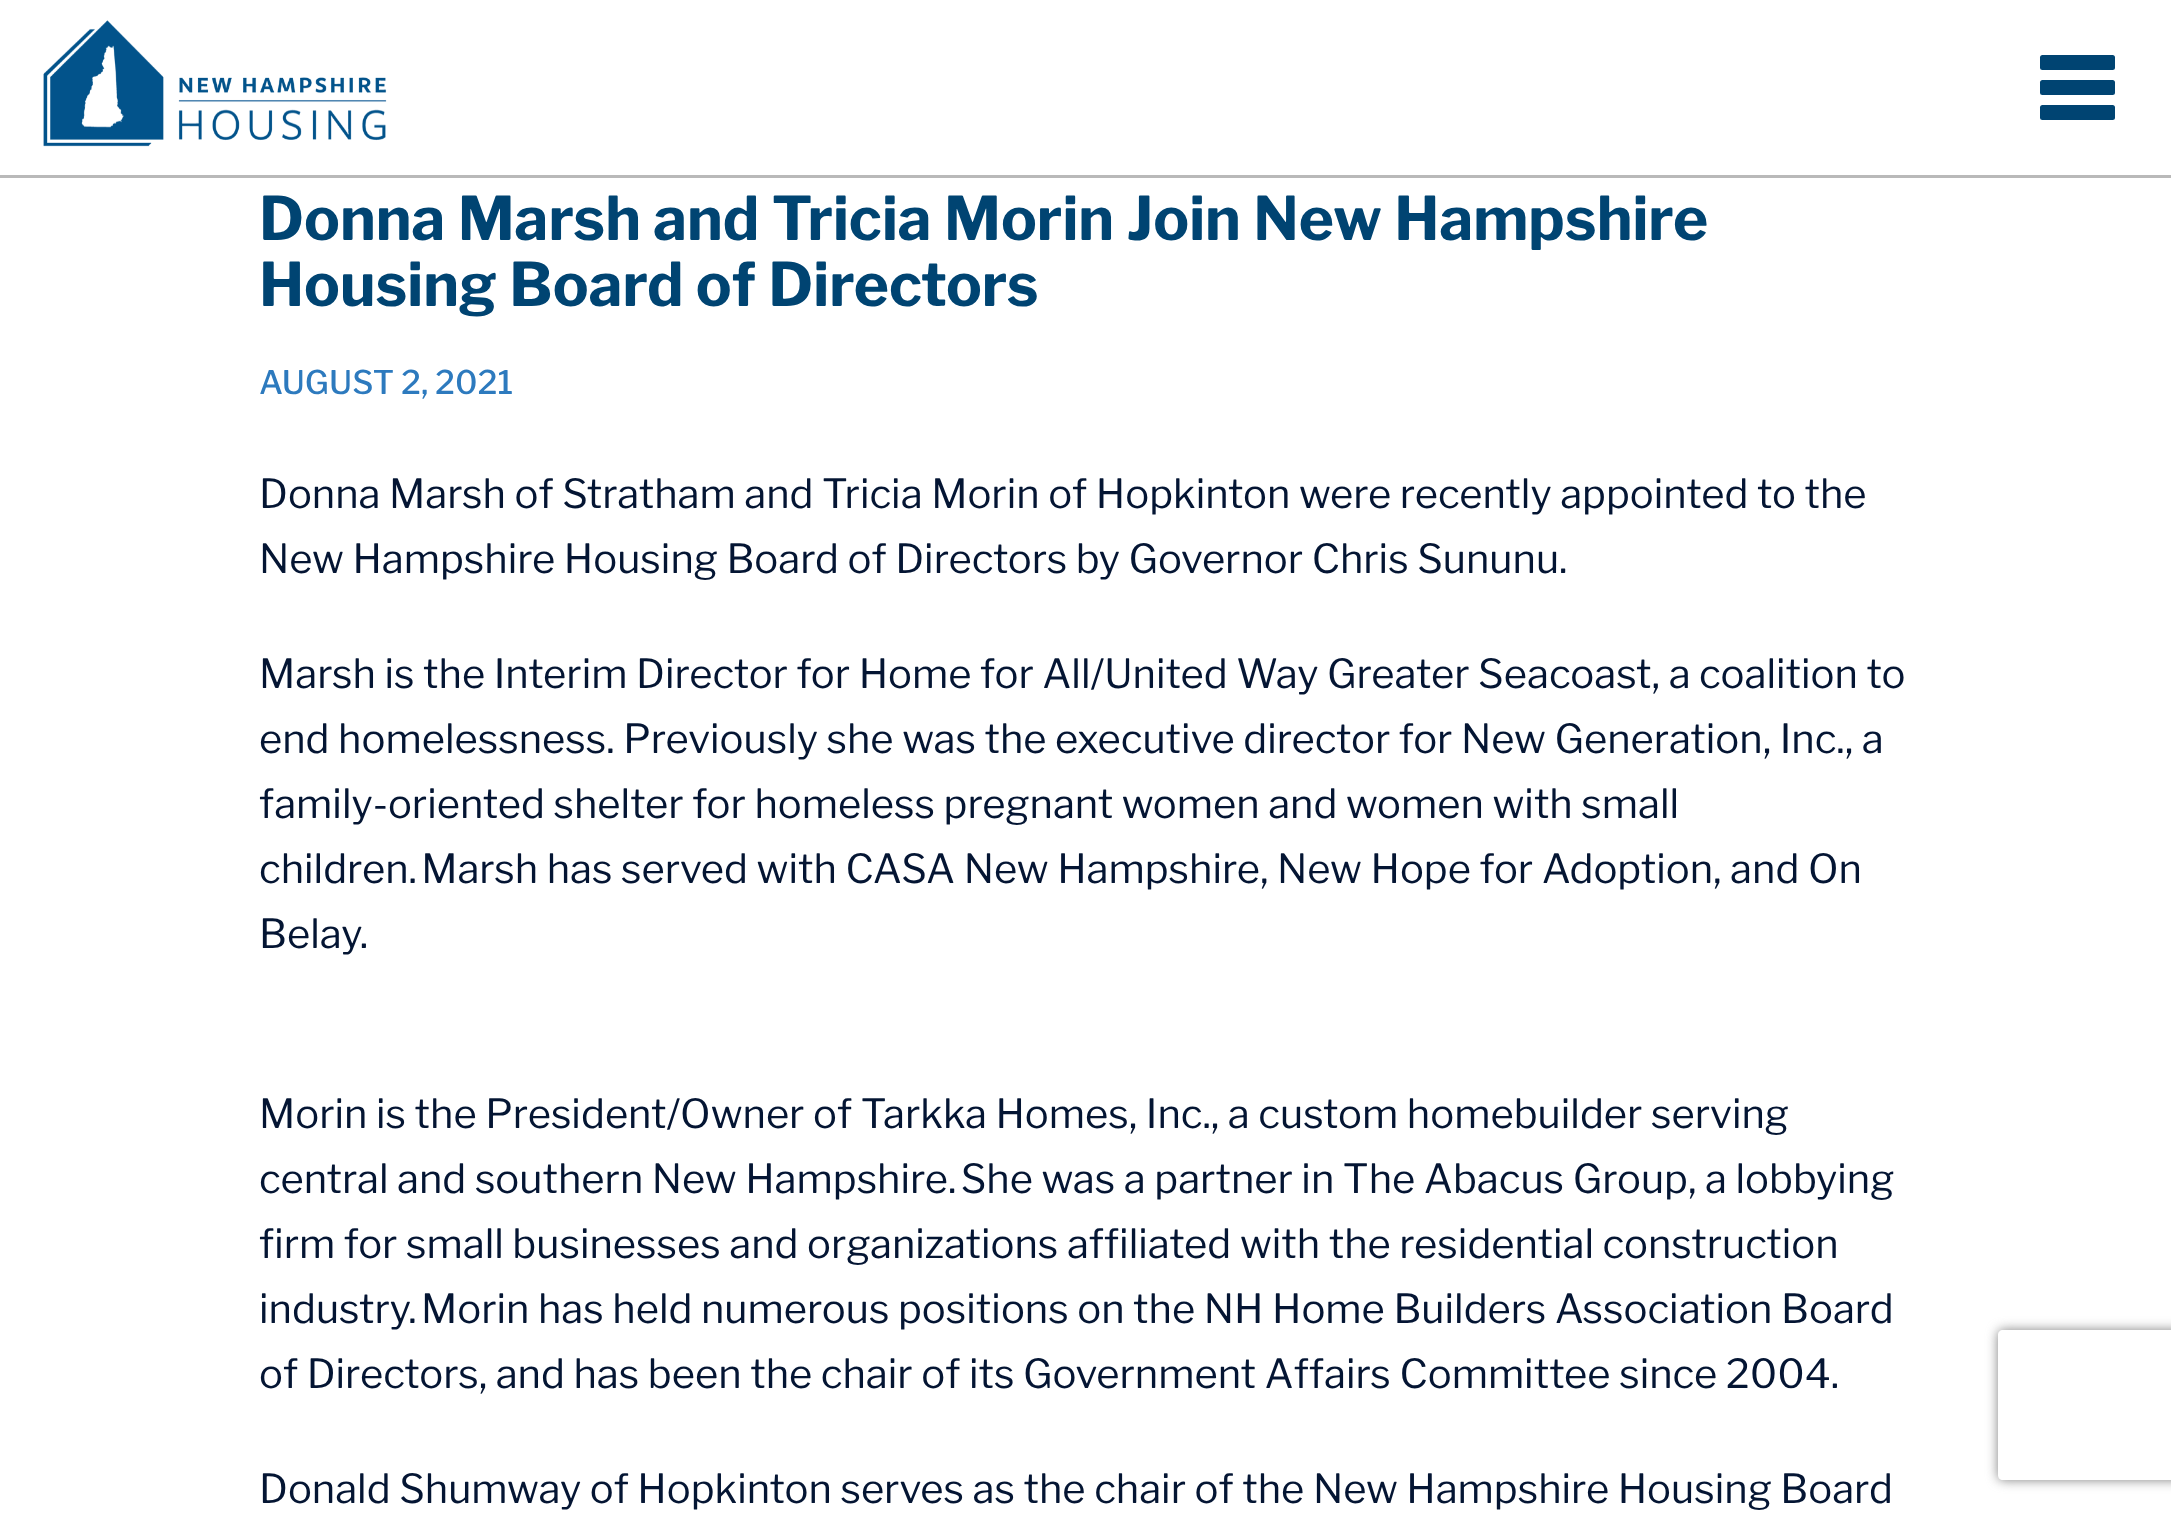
<?xml version="1.0" encoding="UTF-8"?>
<svg xmlns="http://www.w3.org/2000/svg" xmlns:xlink="http://www.w3.org/1999/xlink" width="2171" height="1513">
  <defs>
    <clipPath id="clip1"><path d="M 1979 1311 h 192 v 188 h -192 z m 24 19 h 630 c 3 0 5 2 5 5 v 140 c 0 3 -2 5 -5 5 h -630 c -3 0 -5 -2 -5 -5 v -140 c 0 -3 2 -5 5 -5 z" clip-rule="evenodd" /></clipPath>
  </defs>
  <rect width="100%" height="100%" fill="#ffffff" />
  <rect y="175" width="2171" height="3" fill="#b9b9b9" />
  <image x="43" y="20" width="344" height="127" xlink:href="image1.png" />
  <rect x="2040" y="55" width="75" height="15" rx="2.5" fill="#004472" />
  <rect x="2040" y="80" width="75" height="15" rx="2.5" fill="#004472" />
  <rect x="2040" y="105" width="75" height="15" rx="2.5" fill="#004472" />
  <g clip-path="url(#clip1)">
    <rect x="1998" y="1330" width="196" height="150" rx="5" fill="#808080" filter="blur(6px)" />
  </g>
  <text x="259" y="240" style="font-family: Libre Franklin; font-size: 60px; font-weight: bold; fill: #004472">Donna Marsh and Tricia Morin Join New Hampshire</text>
  <text x="259" y="306" style="font-family: Libre Franklin; font-size: 60px; font-weight: bold; fill: #004472">Housing Board of Directors</text>
  <text x="259" y="394" style="font-family: Libre Franklin; font-size: 32.5px; font-weight: 500; fill: #2d7abe">AUGUST 2, 2021</text>
  <text x="259" y="508" style="font-family: Libre Franklin; font-size: 40px; fill: #041533">Donna Marsh of Stratham and Tricia Morin of Hopkinton were recently appointed to the</text>
  <text x="259" y="573" style="font-family: Libre Franklin; font-size: 40px; fill: #041533">New Hampshire Housing Board of Directors by Governor Chris Sununu.</text>
  <text x="259" y="688" style="font-family: Libre Franklin; font-size: 40px; fill: #041533">Marsh is the Interim Director for Home for All/United Way Greater Seacoast, a coalition to</text>
  <text x="259" y="753" style="font-family: Libre Franklin; font-size: 40px; fill: #041533">end homelessness. Previously she was the executive director for New Generation, Inc., a</text>
  <text x="259" y="818" style="font-family: Libre Franklin; font-size: 40px; fill: #041533">family-oriented shelter for homeless pregnant women and women with small</text>
  <text x="259" y="883" style="font-family: Libre Franklin; font-size: 40px; fill: #041533">children. Marsh has served with CASA New Hampshire, New Hope for Adoption, and On</text>
  <text x="259" y="948" style="font-family: Libre Franklin; font-size: 40px; fill: #041533">Belay.</text>
  <text x="259" y="1128" style="font-family: Libre Franklin; font-size: 40px; fill: #041533">Morin is the President/Owner of Tarkka Homes, Inc., a custom homebuilder serving</text>
  <text x="259" y="1193" style="font-family: Libre Franklin; font-size: 40px; fill: #041533">central and southern New Hampshire. She was a partner in The Abacus Group, a lobbying</text>
  <text x="259" y="1258" style="font-family: Libre Franklin; font-size: 40px; fill: #041533">firm for small businesses and organizations affiliated with the residential construction</text>
  <text x="259" y="1323" style="font-family: Libre Franklin; font-size: 40px; fill: #041533">industry.</text>
  <text x="421" y="1323" style="font-family: Libre Franklin; font-size: 40px; fill: #041533">Morin has held numerous positions on the NH Home Builders Association Board</text>
  <text x="259" y="1388" style="font-family: Libre Franklin; font-size: 40px; fill: #041533">of Directors, and has been the chair of its Government Affairs Committee since 2004.</text>
  <text x="259" y="1503" style="font-family: Libre Franklin; font-size: 40px; fill: #041533">Donald Shumway of Hopkinton serves as the chair of the New Hampshire Housing Board</text>
</svg>
